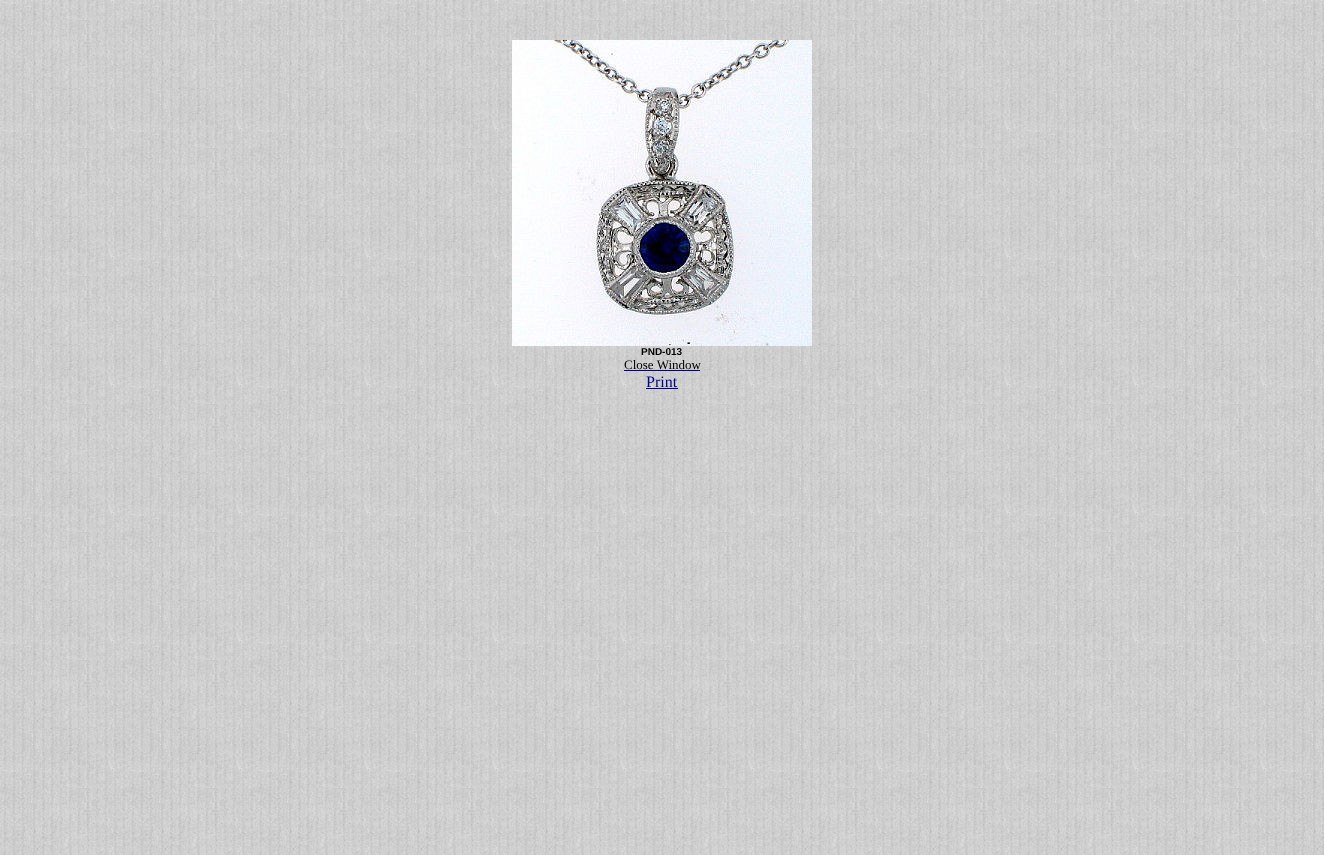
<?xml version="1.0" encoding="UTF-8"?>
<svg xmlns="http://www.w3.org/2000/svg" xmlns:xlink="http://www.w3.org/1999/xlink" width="1324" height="855">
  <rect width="100%" height="100%" fill="#ffffff" />
  <image x="0" y="0" width="1324" height="855" xlink:href="image1.png" />
  <image x="512" y="40" width="300" height="306" xlink:href="image2.png" />
  <rect x="624" y="370" width="76" height="1" fill="#00008b" />
  <rect x="646" y="388" width="32" height="1" fill="#00008b" />
  <text x="641" y="355" style="font-family: Liberation Sans; font-size: 10px; font-weight: bold; fill: #000000">PND-013</text>
  <text x="624" y="369" style="font-family: Liberation Serif; font-size: 13px; fill: #000000">Close Window</text>
  <text x="646" y="387" style="font-family: Liberation Serif; font-size: 16px; fill: #00008b">Print</text>
</svg>
